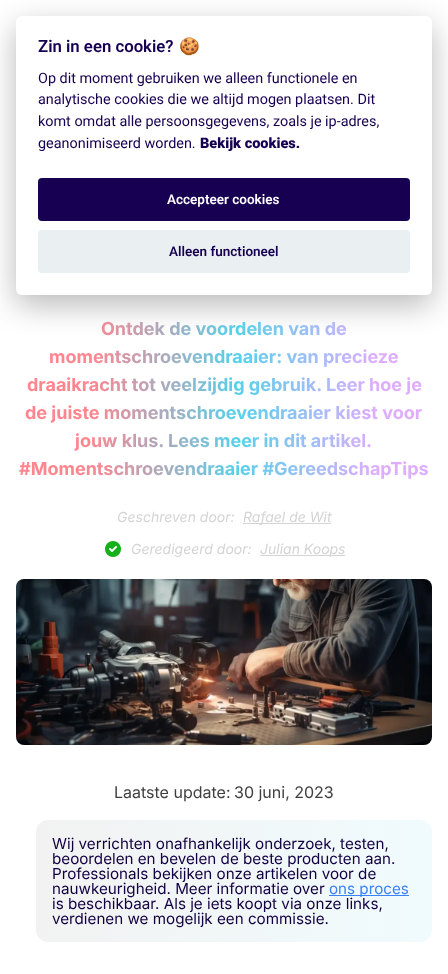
<?xml version="1.0" encoding="UTF-8"?>
<svg xmlns="http://www.w3.org/2000/svg" xmlns:xlink="http://www.w3.org/1999/xlink" width="448" height="974">
  <defs>
    <linearGradient id="g1" gradientUnits="userSpaceOnUse" x1="448" y1="399" x2="0" y2="399"><stop offset="0.16" stop-color="#dfadff" /><stop offset="0.47" stop-color="#56d1eb" /><stop offset="0.8" stop-color="#ff858f" /></linearGradient>
    <linearGradient id="g2" gradientUnits="userSpaceOnUse" x1="36" y1="881" x2="432" y2="881"><stop offset="0" stop-color="#f2f2f2" /><stop offset="1" stop-color="#f0fbfd" /></linearGradient>
  </defs>
  <rect width="100%" height="100%" fill="#ffffff" />
  <rect x="16" y="26" width="416" height="279" rx="6" fill="#020203" fill-opacity="0.28" filter="blur(15px)" />
  <rect x="16" y="16" width="416" height="279" rx="6" fill="#ffffff" />
  <rect x="38" y="178" width="372" height="43" rx="4" fill="#170052" />
  <rect x="38" y="230" width="372" height="43" rx="4" fill="#eaeff2" />
  <rect x="243" y="523" width="88" height="1" fill="#d4d4d4" />
  <image x="105" y="541" width="16" height="16" xlink:href="image1.png" />
  <rect x="260" y="555" width="85" height="1" fill="#d4d4d4" />
  <image x="16" y="579" width="416" height="166" xlink:href="image2.png" />
  <rect x="36" y="820" width="396" height="122" rx="12" fill="url(#g2)" />
  <rect x="329" y="895" width="80" height="1" fill="#3b82f6" />
  <text x="38" y="52" style="font-family: Roboto; font-size: 16.75px; font-weight: 600; fill: #170052">Zin in een cookie?</text>
  <text x="179" y="52" style="font-family: Noto Color Emoji; font-size: 16.75px; font-weight: bold; fill: #170052">🍪</text>
  <text x="38" y="83" style="font-family: Roboto; font-size: 14.4px; fill: #170052">Op dit moment gebruiken we alleen functionele en</text>
  <text x="38" y="104" style="font-family: Roboto; font-size: 14.4px; fill: #170052">analytische cookies die we altijd mogen plaatsen. Dit</text>
  <text x="38" y="126" style="font-family: Roboto; font-size: 14.4px; fill: #170052">komt omdat alle persoonsgegevens, zoals je ip-adres,</text>
  <text x="38" y="148" style="font-family: Roboto; font-size: 14.4px; fill: #170052">geanonimiseerd worden.</text>
  <text x="200" y="148" style="font-family: Roboto; font-size: 14.5px; font-weight: 900; fill: #170052">Bekijk cookies.</text>
  <text x="167" y="204" style="font-family: Roboto; font-size: 13.5px; font-weight: 600; fill: #ffffff">Accepteer cookies</text>
  <text x="169" y="256" style="font-family: Roboto; font-size: 13.5px; font-weight: 600; fill: #170052">Alleen functioneel</text>
  <text x="101" y="335" style="font-family: Inter; font-size: 18px; font-weight: bold; fill: url(#g1)">Ontdek de voordelen van de</text>
  <text x="49" y="363" style="font-family: Inter; font-size: 18px; font-weight: bold; fill: url(#g1)">momentschroevendraaier: van precieze</text>
  <text x="27" y="391" style="font-family: Inter; font-size: 18px; font-weight: bold; fill: url(#g1)">draaikracht tot veelzijdig gebruik. Leer hoe je</text>
  <text x="25" y="419" style="font-family: Inter; font-size: 18px; font-weight: bold; fill: url(#g1)">de juiste momentschroevendraaier kiest voor</text>
  <text x="75" y="447" style="font-family: Inter; font-size: 18px; font-weight: bold; fill: url(#g1)">jouw klus. Lees meer in dit artikel.</text>
  <text x="19" y="475" style="font-family: Inter; font-size: 18px; font-weight: bold; fill: url(#g1)">#Momentschroevendraaier #GereedschapTips</text>
  <text x="117" y="522" style="font-family: Inter; font-size: 14px; font-style: italic; fill: #d4d4d4">Geschreven door:</text>
  <text x="243" y="522" style="font-family: Inter; font-size: 14px; font-style: italic; fill: #d4d4d4">Rafael de Wit</text>
  <text x="131" y="554" style="font-family: Inter; font-size: 14px; font-style: italic; fill: #d4d4d4">Geredigeerd door:</text>
  <text x="260" y="554" style="font-family: Inter; font-size: 14px; font-style: italic; fill: #d4d4d4">Julian Koops</text>
  <text x="114" y="798" style="font-family: Inter; font-size: 16px; fill: #404040">Laatste update:</text>
  <text x="234" y="798" style="font-family: Inter; font-size: 16px; fill: #404040">30 juni, 2023</text>
  <text x="52" y="849" style="font-family: Inter; font-size: 15.2px; fill: #130042">Wij verrichten onafhankelijk onderzoek, testen,</text>
  <text x="52" y="864" style="font-family: Inter; font-size: 15.2px; fill: #130042">beoordelen en bevelen de beste producten aan.</text>
  <text x="52" y="879" style="font-family: Inter; font-size: 15.2px; fill: #130042">Professionals bekijken onze artikelen voor de</text>
  <text x="52" y="894" style="font-family: Inter; font-size: 15.2px; fill: #130042">nauwkeurigheid. Meer informatie over</text>
  <text x="329" y="894" style="font-family: Inter; font-size: 15.2px; fill: #3b82f6">ons proces</text>
  <text x="52" y="909" style="font-family: Inter; font-size: 15.2px; fill: #130042">is beschikbaar. Als je iets koopt via onze links,</text>
  <text x="52" y="924" style="font-family: Inter; font-size: 15.2px; fill: #130042">verdienen we mogelijk een commissie.</text>
</svg>
